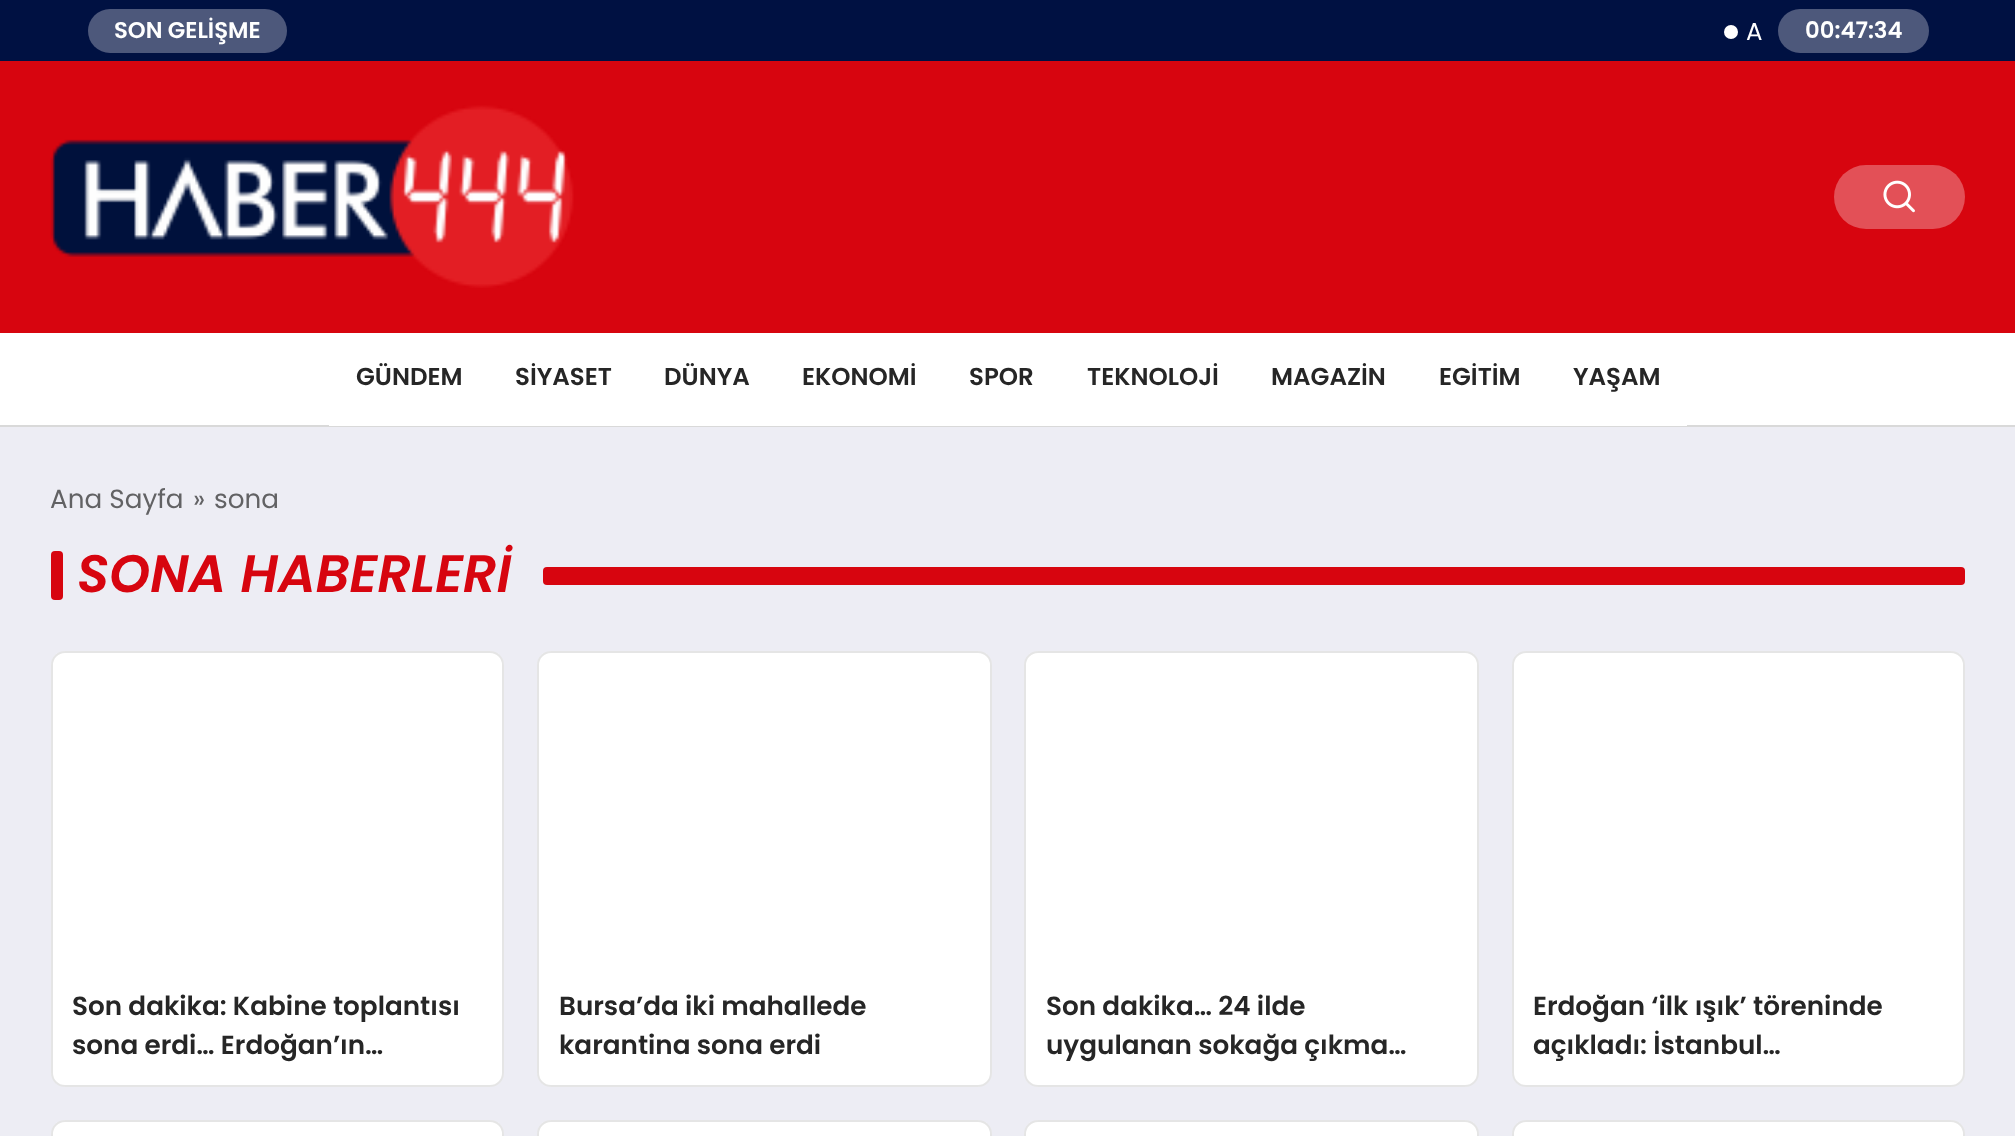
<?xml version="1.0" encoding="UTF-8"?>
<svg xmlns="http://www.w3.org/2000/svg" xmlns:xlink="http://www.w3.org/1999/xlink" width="2015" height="1136">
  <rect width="100%" height="100%" fill="#ededf4" />
  <rect width="2015" height="61" fill="#001142" />
  <rect x="88" y="9" width="199" height="44" rx="22" fill="#4d587b" />
  <circle cx="1731" cy="32" r="7" fill="#ffffff" />
  <rect x="1778" y="9" width="151" height="44" rx="22" fill="#4d587b" />
  <rect y="61" width="2015" height="272" fill="#d7050f" />
  <image x="50" y="105" width="524" height="183" xlink:href="image1.png" />
  <rect x="1834" y="165" width="131" height="64" rx="32" fill="#e35057" />
  <image x="1883" y="180" width="32" height="33" xlink:href="image2.png" />
  <rect y="333" width="2015" height="92" fill="#ffffff" />
  <rect y="425" width="2015" height="2" fill="#d9d9d9" />
  <rect x="329" y="425" width="1358" height="1" fill="#ffffff" />
  <rect x="51" y="551" width="12" height="49" rx="4" fill="#d7050f" />
  <rect x="543" y="567" width="1422" height="18" rx="4" fill="#d7050f" />
  <rect x="51" y="651" width="453" height="436" rx="14" fill="#ffffff" />
  <rect x="52" y="652" width="451" height="434" rx="13" fill="none" stroke="#000000" stroke-opacity="0.1" stroke-width="2" />
  <rect x="537" y="651" width="455" height="436" rx="14" fill="#ffffff" />
  <rect x="538" y="652" width="453" height="434" rx="13" fill="none" stroke="#000000" stroke-opacity="0.1" stroke-width="2" />
  <rect x="1024" y="651" width="455" height="436" rx="14" fill="#ffffff" />
  <rect x="1025" y="652" width="453" height="434" rx="13" fill="none" stroke="#000000" stroke-opacity="0.1" stroke-width="2" />
  <rect x="1512" y="651" width="453" height="436" rx="14" fill="#ffffff" />
  <rect x="1513" y="652" width="451" height="434" rx="13" fill="none" stroke="#000000" stroke-opacity="0.1" stroke-width="2" />
  <rect x="51" y="1120" width="453" height="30" rx="14" fill="#ffffff" />
  <rect x="52" y="1121" width="451" height="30" rx="13" fill="none" stroke="#000000" stroke-opacity="0.1" stroke-width="2" />
  <rect x="537" y="1120" width="455" height="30" rx="14" fill="#ffffff" />
  <rect x="538" y="1121" width="453" height="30" rx="13" fill="none" stroke="#000000" stroke-opacity="0.1" stroke-width="2" />
  <rect x="1024" y="1120" width="455" height="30" rx="14" fill="#ffffff" />
  <rect x="1025" y="1121" width="453" height="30" rx="13" fill="none" stroke="#000000" stroke-opacity="0.1" stroke-width="2" />
  <rect x="1512" y="1120" width="453" height="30" rx="14" fill="#ffffff" />
  <rect x="1513" y="1121" width="451" height="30" rx="13" fill="none" stroke="#000000" stroke-opacity="0.1" stroke-width="2" />
  <text x="114" y="38" style="font-family: Poppins; font-size: 22.75px; font-weight: 600; fill: #ffffff">SON GELİŞME</text>
  <text x="1746" y="40" style="font-family: Poppins; font-size: 24.5px; fill: #ffffff">A</text>
  <text x="1805" y="38" style="font-family: Poppins; font-size: 22.75px; font-weight: 600; fill: #ffffff">00:47:34</text>
  <text x="356" y="385" style="font-family: Poppins; font-size: 24.5px; font-weight: 600; fill: #262626">GÜNDEM</text>
  <text x="515" y="385" style="font-family: Poppins; font-size: 24.5px; font-weight: 600; fill: #262626">SİYASET</text>
  <text x="664" y="385" style="font-family: Poppins; font-size: 24.5px; font-weight: 600; fill: #262626">DÜNYA</text>
  <text x="802" y="385" style="font-family: Poppins; font-size: 24.5px; font-weight: 600; fill: #262626">EKONOMİ</text>
  <text x="969" y="385" style="font-family: Poppins; font-size: 24.5px; font-weight: 600; fill: #262626">SPOR</text>
  <text x="1087" y="385" style="font-family: Poppins; font-size: 24.5px; font-weight: 600; fill: #262626">TEKNOLOJİ</text>
  <text x="1271" y="385" style="font-family: Poppins; font-size: 24.5px; font-weight: 600; fill: #262626">MAGAZİN</text>
  <text x="1439" y="385" style="font-family: Poppins; font-size: 24.5px; font-weight: 600; fill: #262626">EGİTİM</text>
  <text x="1573" y="385" style="font-family: Poppins; font-size: 24.5px; font-weight: 600; fill: #262626">YAŞAM</text>
  <text x="50" y="508" style="font-family: Poppins; font-size: 26.25px; fill: #626264">Ana Sayfa</text>
  <text x="193" y="508" style="font-family: Poppins; font-size: 26.25px; fill: #626264">»</text>
  <text x="214" y="508" style="font-family: Poppins; font-size: 26.25px; fill: #626264">sona</text>
  <text x="77" y="592" style="font-family: Poppins; font-size: 52.5px; font-weight: 600; font-style: italic; fill: #d7050f">SONA HABERLERİ</text>
  <text x="72" y="1015" style="font-family: Poppins; font-size: 26.25px; font-weight: 600; fill: #262626">Son dakika: Kabine toplantısı</text>
  <text x="72" y="1054" style="font-family: Poppins; font-size: 26.25px; font-weight: 600; fill: #262626">sona erdi… Erdoğan’ın…</text>
  <text x="559" y="1015" style="font-family: Poppins; font-size: 26.25px; font-weight: 600; fill: #262626">Bursa’da iki mahallede</text>
  <text x="559" y="1054" style="font-family: Poppins; font-size: 26.25px; font-weight: 600; fill: #262626">karantina sona erdi</text>
  <text x="1046" y="1015" style="font-family: Poppins; font-size: 26.25px; font-weight: 600; fill: #262626">Son dakika… 24 ilde</text>
  <text x="1046" y="1054" style="font-family: Poppins; font-size: 26.25px; font-weight: 600; fill: #262626">uygulanan sokağa çıkma…</text>
  <text x="1533" y="1015" style="font-family: Poppins; font-size: 26.25px; font-weight: 600; fill: #262626">Erdoğan ‘ilk ışık’ töreninde</text>
  <text x="1533" y="1054" style="font-family: Poppins; font-size: 26.25px; font-weight: 600; fill: #262626">açıkladı: İstanbul…</text>
</svg>
